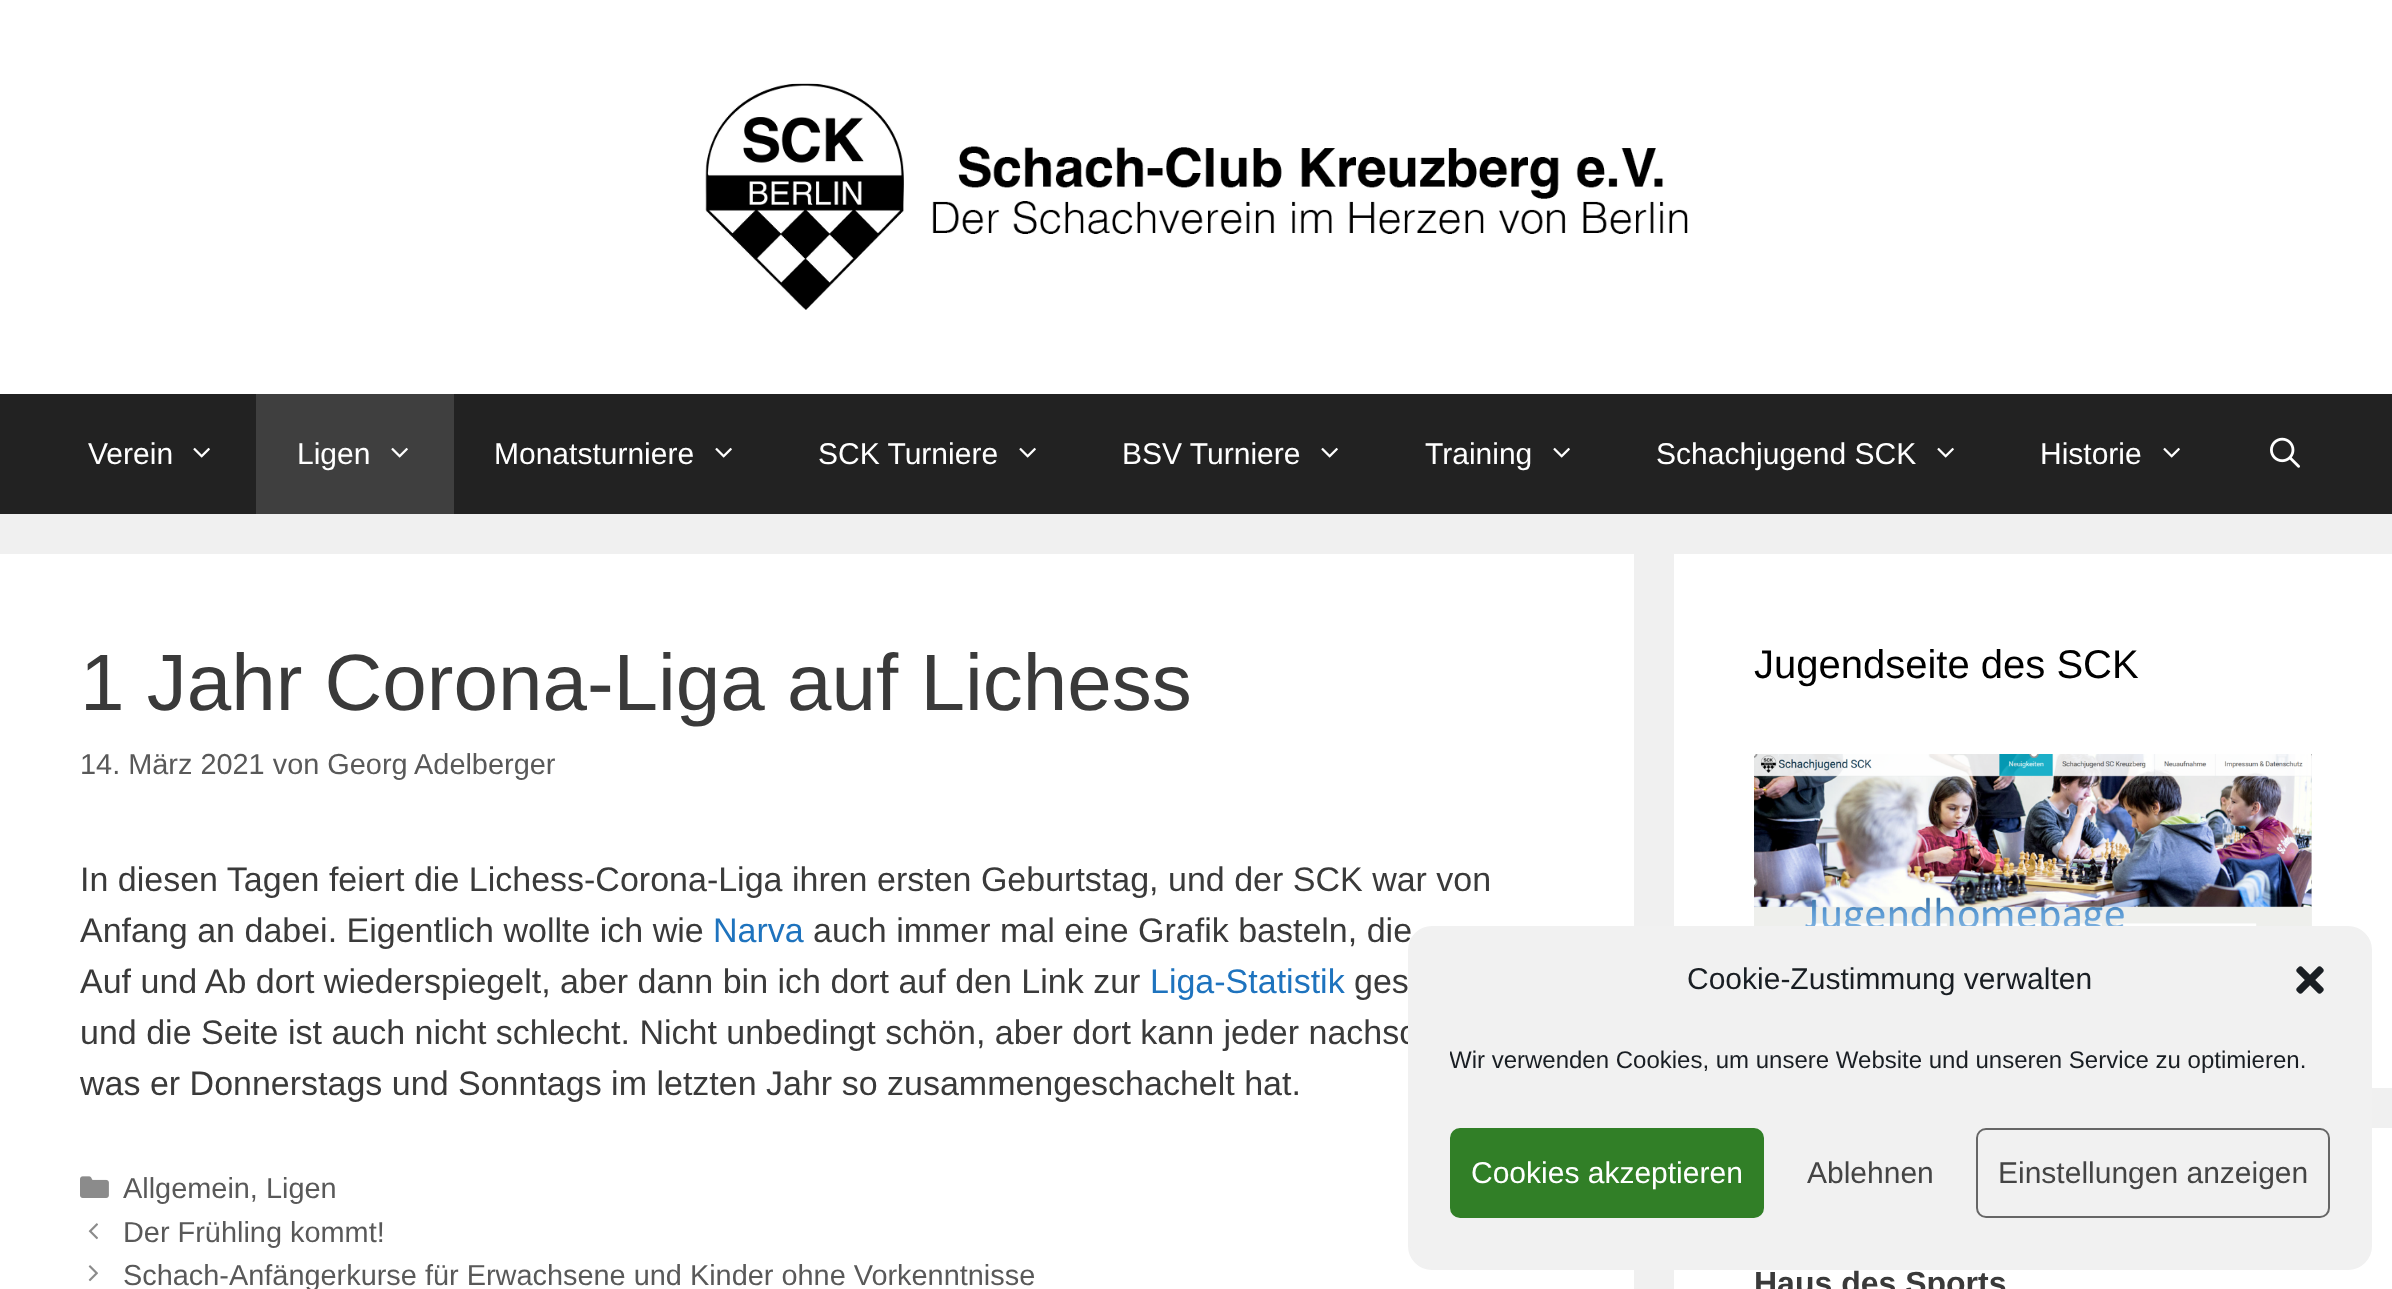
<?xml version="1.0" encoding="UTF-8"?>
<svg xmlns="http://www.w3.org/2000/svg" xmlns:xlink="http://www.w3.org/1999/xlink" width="2392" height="1289">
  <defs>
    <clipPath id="clip1"><rect x="1450" y="1042" width="880" height="46" /></clipPath>
  </defs>
  <rect width="100%" height="100%" fill="#f0f0f0" />
  <rect width="2392" height="394" fill="#ffffff" />
  <image x="705" y="83" width="983" height="227" xlink:href="image1.png" />
  <rect y="394" width="2392" height="120" fill="#222222" />
  <image x="193" y="447" width="17" height="11" xlink:href="image2.png" />
  <rect x="256" y="394" width="198" height="120" fill="#3f3f3f" />
  <image x="391" y="447" width="17" height="11" xlink:href="image3.png" />
  <image x="715" y="447" width="17" height="11" xlink:href="image2.png" />
  <image x="1019" y="447" width="17" height="11" xlink:href="image2.png" />
  <image x="1321" y="447" width="17" height="11" xlink:href="image2.png" />
  <image x="1553" y="447" width="17" height="11" xlink:href="image2.png" />
  <image x="1937" y="447" width="17" height="11" xlink:href="image2.png" />
  <image x="2163" y="447" width="17" height="11" xlink:href="image2.png" />
  <image x="2270" y="437" width="30" height="31" xlink:href="image4.png" />
  <rect y="554" width="1634" height="735" fill="#ffffff" />
  <image x="80" y="1176" width="29" height="22" xlink:href="image5.png" />
  <image x="88" y="1223" width="10" height="17" xlink:href="image6.png" />
  <image x="88" y="1265" width="10" height="17" xlink:href="image7.png" />
  <rect x="1674" y="554" width="718" height="534" fill="#ffffff" />
  <image x="1754" y="754" width="558" height="172" xlink:href="image8.png" />
  <rect x="1674" y="1128" width="718" height="161" fill="#ffffff" />
  <text x="88" y="464" style="font-family: Liberation Sans; font-size: 30px; fill: #ffffff">Verein</text>
  <text x="297" y="464" style="font-family: Liberation Sans; font-size: 30px; fill: #ffffff">Ligen</text>
  <text x="494" y="464" style="font-family: Liberation Sans; font-size: 30px; fill: #ffffff">Monatsturniere</text>
  <text x="818" y="464" style="font-family: Liberation Sans; font-size: 30px; fill: #ffffff">SCK Turniere</text>
  <text x="1122" y="464" style="font-family: Liberation Sans; font-size: 30px; fill: #ffffff">BSV Turniere</text>
  <text x="1425" y="464" style="font-family: Liberation Sans; font-size: 30px; fill: #ffffff">Training</text>
  <text x="1656" y="464" style="font-family: Liberation Sans; font-size: 30px; fill: #ffffff">Schachjugend SCK</text>
  <text x="2040" y="464" style="font-family: Liberation Sans; font-size: 30px; fill: #ffffff">Historie</text>
  <text x="80" y="710" style="font-family: Liberation Sans; font-size: 80px; fill: #3a3a3a">1 Jahr Corona-Liga auf Lichess</text>
  <text x="80" y="774" style="font-family: Liberation Sans; font-size: 28.9px; fill: #595959">14. März 2021 von Georg Adelberger</text>
  <text x="80" y="891" style="font-family: Liberation Sans; font-size: 34px; fill: #3a3a3a">In diesen Tagen feiert die Lichess-Corona-Liga ihren ersten Geburtstag, und der SCK war von</text>
  <text x="80" y="942" style="font-family: Liberation Sans; font-size: 34px; fill: #3a3a3a">Anfang an dabei. Eigentlich wollte ich wie</text>
  <text x="713" y="942" style="font-family: Liberation Sans; font-size: 34px; fill: #1e73be">Narva</text>
  <text x="813" y="942" style="font-family: Liberation Sans; font-size: 34px; fill: #3a3a3a">auch immer mal eine Grafik basteln, die</text>
  <text x="80" y="993" style="font-family: Liberation Sans; font-size: 34px; fill: #3a3a3a">Auf und Ab dort wiederspiegelt, aber dann bin ich dort auf den Link zur</text>
  <text x="1150" y="993" style="font-family: Liberation Sans; font-size: 34px; fill: #1e73be">Liga-Statistik</text>
  <text x="1354" y="993" style="font-family: Liberation Sans; font-size: 34px; fill: #3a3a3a">ges</text>
  <text x="80" y="1044" style="font-family: Liberation Sans; font-size: 34px; fill: #3a3a3a">und die Seite ist auch nicht schlecht. Nicht unbedingt schön, aber dort kann jeder nachsc</text>
  <text x="80" y="1095" style="font-family: Liberation Sans; font-size: 34px; fill: #3a3a3a">was er Donnerstags und Sonntags im letzten Jahr so zusammengeschachelt hat.</text>
  <text x="123" y="1198" style="font-family: Liberation Sans; font-size: 28.9px; fill: #595959">Allgemein, Ligen</text>
  <text x="123" y="1242" style="font-family: Liberation Sans; font-size: 28.9px; fill: #595959">Der Frühling kommt!</text>
  <text x="123" y="1285" style="font-family: Liberation Sans; font-size: 28.9px; fill: #595959">Schach-Anfängerkurse für Erwachsene und Kinder ohne Vorkenntnisse</text>
  <text x="1754" y="678" style="font-family: Liberation Sans; font-size: 40px; fill: #000000">Jugendseite des SCK</text>
  <text x="1754" y="1294" style="font-family: Liberation Sans; font-size: 32px; font-weight: bold; fill: #3a3a3a">Haus des Sports</text>
  <rect x="1409" y="927" width="962" height="342" rx="23" fill="#f1f1f1" stroke="#f1f1f1" stroke-width="2" />
  <text x="1687" y="989" style="font-family: Liberation Sans; font-size: 30px; fill: #191e23">Cookie-Zustimmung verwalten</text>
  <image x="2296" y="966" width="28" height="28" xlink:href="image9.png" />
  <g clip-path="url(#clip1)">
    <text x="1449" y="1068" style="font-family: Liberation Sans; font-size: 24px; fill: #191e23">Wir verwenden Cookies, um unsere Website und unseren Service zu optimieren.</text>
  </g>
  <rect x="1451" y="1129" width="312" height="88" rx="9" fill="#317f27" stroke="#317f27" stroke-width="2" />
  <text x="1471" y="1183" style="font-family: Liberation Sans; font-size: 30px; fill: #ffffff">Cookies akzeptieren</text>
  <text x="1807" y="1183" style="font-family: Liberation Sans; font-size: 30px; fill: #444444">Ablehnen</text>
  <rect x="1977" y="1129" width="352" height="88" rx="9" fill="none" stroke="#666666" stroke-width="2" />
  <text x="1998" y="1183" style="font-family: Liberation Sans; font-size: 30px; fill: #444444">Einstellungen anzeigen</text>
</svg>
